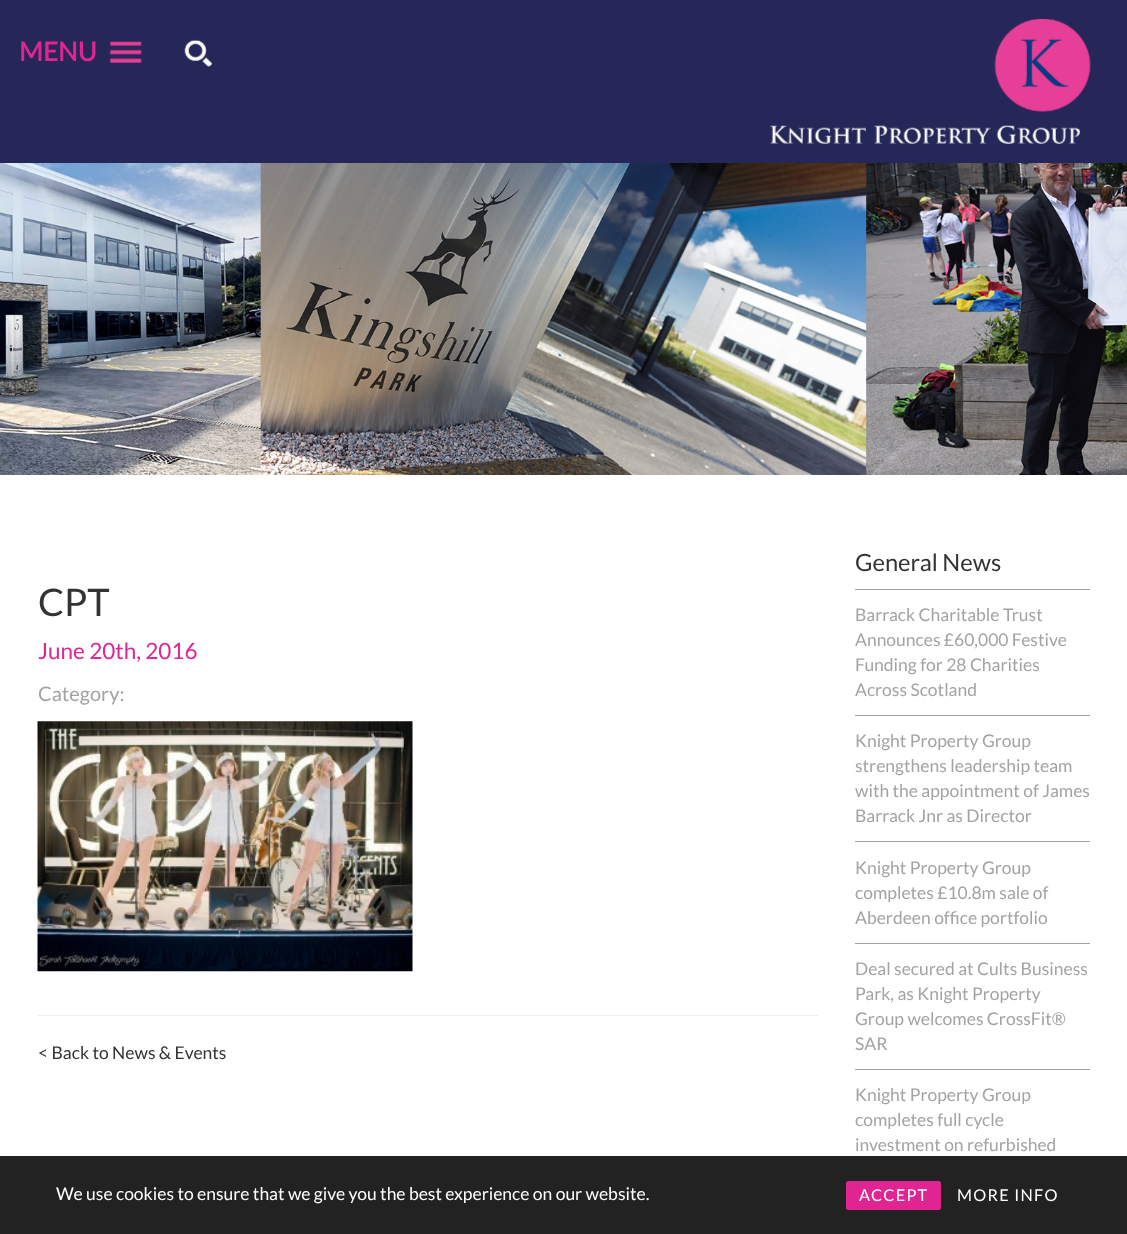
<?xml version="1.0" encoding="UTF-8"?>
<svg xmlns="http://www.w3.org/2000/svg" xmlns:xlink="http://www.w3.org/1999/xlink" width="1127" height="1234">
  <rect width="100%" height="100%" fill="#ffffff" />
  <rect width="1127" height="163" fill="#252758" />
  <image x="109" y="41" width="33" height="22" xlink:href="image1.png" />
  <image x="184" y="39" width="28" height="28" xlink:href="image2.png" />
  <image x="769" y="19" width="322" height="125" xlink:href="image3.png" />
  <image x="0" y="163" width="1127" height="312" xlink:href="image4.png" />
  <image x="37" y="721" width="376" height="251" xlink:href="image5.png" />
  <rect x="38" y="1015" width="780" height="1" fill="#eeeeee" />
  <rect x="855" y="589" width="235" height="1" fill="#a3a3a3" />
  <rect x="855" y="715" width="235" height="1" fill="#a3a3a3" />
  <rect x="855" y="841" width="235" height="1" fill="#a3a3a3" />
  <rect x="855" y="943" width="235" height="1" fill="#a3a3a3" />
  <rect x="855" y="1069" width="235" height="1" fill="#a3a3a3" />
  <rect y="1156" width="1127" height="78" fill="#222222" />
  <rect x="846" y="1181" width="95" height="29" rx="2.5" fill="#e02491" />
  <text x="19" y="61" style="font-family: Lato; font-size: 26px; font-weight: bold; fill: #e02491">MENU</text>
  <text x="38" y="616" style="font-family: Lato; font-size: 38px; fill: #333333">CPT</text>
  <text x="38" y="659" style="font-family: Lato; font-size: 22.5px; fill: #e02491">June 20th, 2016</text>
  <text x="38" y="701" style="font-family: Lato; font-size: 20px; fill: #a3a3a3">Category:</text>
  <text x="38" y="1059" style="font-family: Lato; font-size: 17.5px; fill: #333333">&lt; Back to News &amp; Events</text>
  <text x="855" y="571" style="font-family: Lato; font-size: 23.75px; fill: #333333">General News</text>
  <text x="855" y="621" style="font-family: Lato; font-size: 17.5px; fill: #a3a3a3">Barrack Charitable Trust</text>
  <text x="855" y="646" style="font-family: Lato; font-size: 17.5px; fill: #a3a3a3">Announces £60,000 Festive</text>
  <text x="855" y="671" style="font-family: Lato; font-size: 17.5px; fill: #a3a3a3">Funding for 28 Charities</text>
  <text x="855" y="696" style="font-family: Lato; font-size: 17.5px; fill: #a3a3a3">Across Scotland</text>
  <text x="855" y="747" style="font-family: Lato; font-size: 17.5px; fill: #a3a3a3">Knight Property Group</text>
  <text x="855" y="772" style="font-family: Lato; font-size: 17.5px; fill: #a3a3a3">strengthens leadership team</text>
  <text x="855" y="797" style="font-family: Lato; font-size: 17.5px; fill: #a3a3a3">with the appointment of James</text>
  <text x="855" y="822" style="font-family: Lato; font-size: 17.5px; fill: #a3a3a3">Barrack Jnr as Director</text>
  <text x="855" y="874" style="font-family: Lato; font-size: 17.5px; fill: #a3a3a3">Knight Property Group</text>
  <text x="855" y="899" style="font-family: Lato; font-size: 17.5px; fill: #a3a3a3">completes £10.8m sale of</text>
  <text x="855" y="924" style="font-family: Lato; font-size: 17.5px; fill: #a3a3a3">Aberdeen office portfolio</text>
  <text x="855" y="975" style="font-family: Lato; font-size: 17.5px; fill: #a3a3a3">Deal secured at Cults Business</text>
  <text x="855" y="1000" style="font-family: Lato; font-size: 17.5px; fill: #a3a3a3">Park, as Knight Property</text>
  <text x="855" y="1025" style="font-family: Lato; font-size: 17.5px; fill: #a3a3a3">Group welcomes CrossFit®</text>
  <text x="855" y="1050" style="font-family: Lato; font-size: 17.5px; fill: #a3a3a3">SAR</text>
  <text x="855" y="1101" style="font-family: Lato; font-size: 17.5px; fill: #a3a3a3">Knight Property Group</text>
  <text x="855" y="1126" style="font-family: Lato; font-size: 17.5px; fill: #a3a3a3">completes full cycle</text>
  <text x="855" y="1151" style="font-family: Lato; font-size: 17.5px; fill: #a3a3a3">investment on refurbished</text>
  <text x="56" y="1200" style="font-family: Lato; font-size: 17.5px; fill: #ffffff">We use cookies to ensure that we give you the best experience on our website.</text>
  <text x="859" y="1201" style="font-family: Lato; font-size: 16.25px; letter-spacing: 1.25px; fill: #ffffff">ACCEPT</text>
  <text x="957" y="1201" style="font-family: Lato; font-size: 16.25px; letter-spacing: 1.25px; fill: #ffffff">MORE INFO</text>
</svg>
